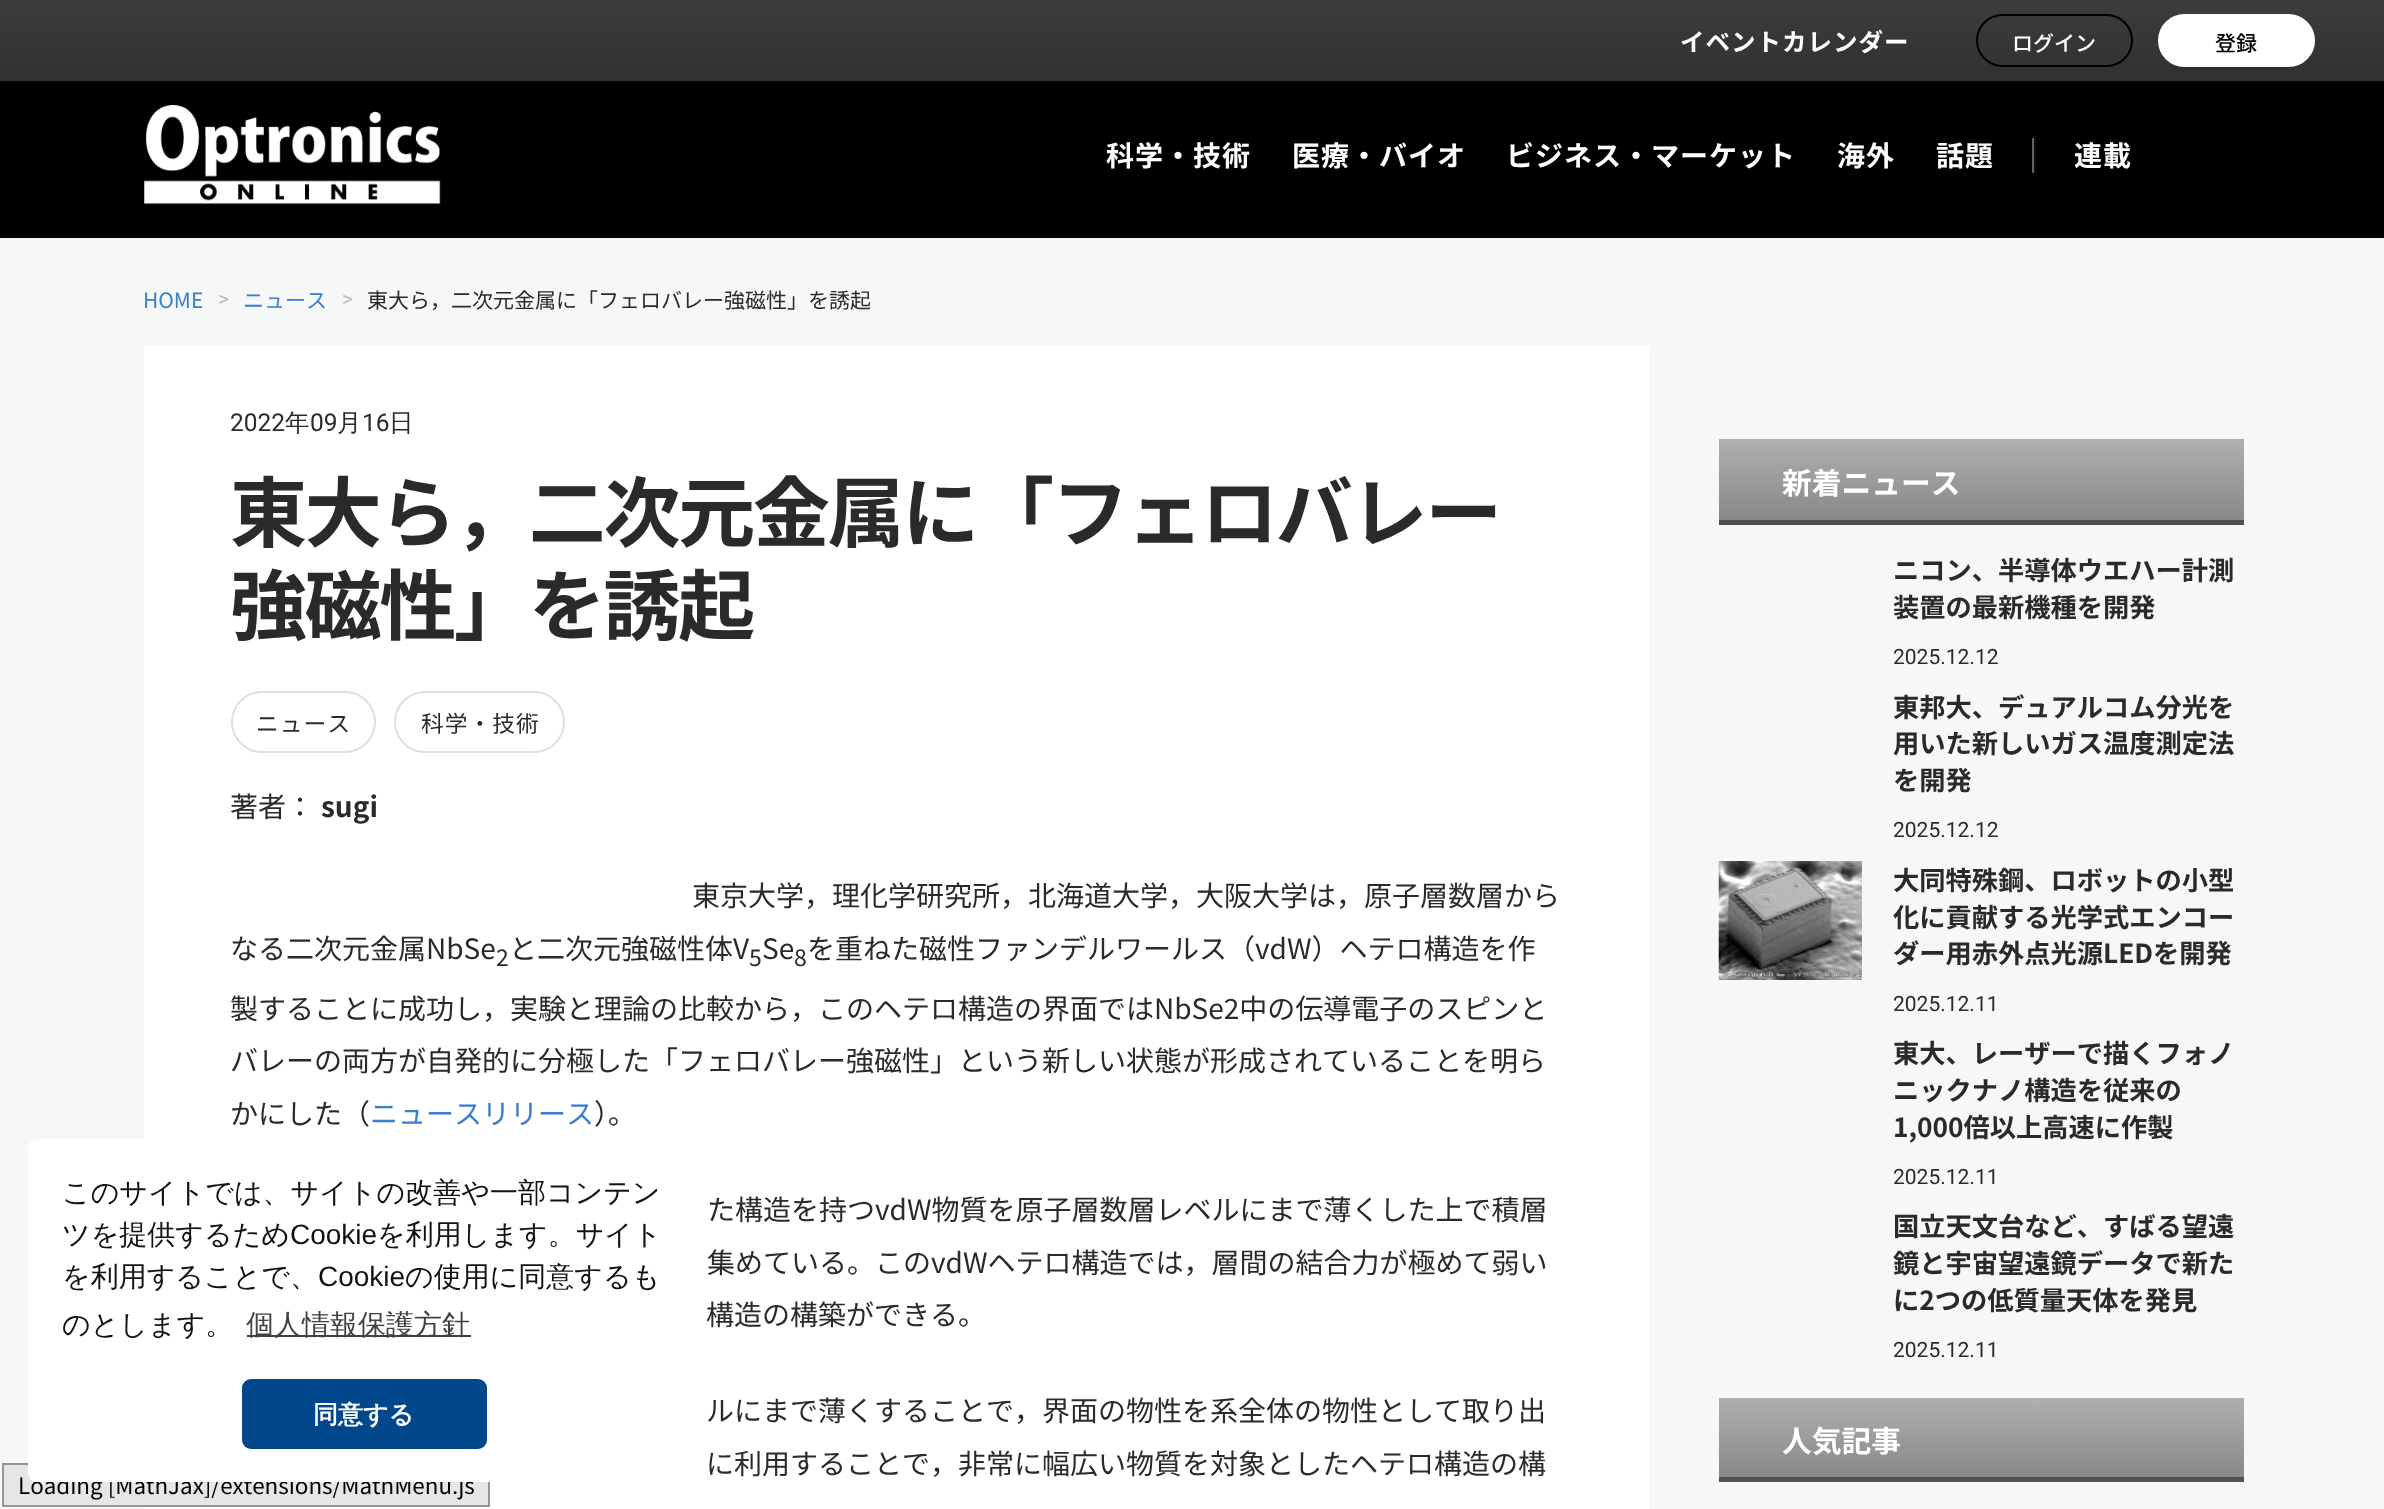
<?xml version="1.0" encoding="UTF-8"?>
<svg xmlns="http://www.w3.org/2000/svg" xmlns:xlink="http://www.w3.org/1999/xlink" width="2384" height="1509">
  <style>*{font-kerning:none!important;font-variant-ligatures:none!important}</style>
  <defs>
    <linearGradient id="g1" gradientUnits="userSpaceOnUse" x1="1193" y1="0" x2="1193" y2="81"><stop offset="0" stop-color="#3d3d3d" /><stop offset="1" stop-color="#303030" /></linearGradient>
    <linearGradient id="g2" gradientUnits="userSpaceOnUse" x1="1981" y1="439" x2="1981" y2="520"><stop offset="0" stop-color="#afafaf" /><stop offset="1" stop-color="#888888" /></linearGradient>
    <linearGradient id="g3" gradientUnits="userSpaceOnUse" x1="1981" y1="1398" x2="1981" y2="1477"><stop offset="0" stop-color="#afafaf" /><stop offset="1" stop-color="#888888" /></linearGradient>
  </defs>
  <rect width="100%" height="100%" fill="#f6f7f7" />
  <rect y="81" width="2384" height="157" fill="#000000" />
  <rect width="2384" height="81" fill="url(#g1)" />
  <rect x="1977" y="15" width="155" height="51" rx="25.5" fill="none" stroke="#000000" stroke-width="2" />
  <rect x="2159" y="15" width="155" height="51" rx="25.5" fill="#ffffff" stroke="#ffffff" stroke-width="2" />
  <image x="144" y="105" width="297" height="100" xlink:href="image1.png" />
  <rect x="2032" y="138" width="2" height="35" fill="#616161" />
  <rect x="2034" y="138" width="2" height="35" fill="#0d0d0d" />
  <rect x="144" y="345" width="1505" height="1164" fill="#ffffff" />
  <rect x="232" y="692" width="143" height="60" rx="30" fill="none" stroke="#dfdfdf" stroke-width="2" />
  <rect x="395" y="692" width="169" height="60" rx="30" fill="none" stroke="#dfdfdf" stroke-width="2" />
  <rect x="1719" y="520" width="525" height="5" fill="#515151" />
  <rect x="1719" y="439" width="525" height="81" fill="url(#g2)" />
  <image x="1718" y="861" width="144" height="119" xlink:href="image2.png" />
  <rect x="1719" y="1477" width="525" height="5" fill="#515151" />
  <rect x="1719" y="1398" width="525" height="79" fill="url(#g3)" />
  <rect x="3" y="1464" width="486" height="42" fill="#e6e6e6" stroke="#959595" stroke-width="2" />
  <text x="1680" y="51" style="font-family: Noto Sans JP; font-size: 24.5px; font-weight: bold; letter-spacing: 1px; fill: #ffffff">イベントカレンダー</text>
  <text x="2012" y="51" style="font-family: Noto Sans JP; font-size: 21px; font-weight: 500; fill: #ffffff">ログイン</text>
  <text x="2215" y="51" style="font-family: Noto Sans JP; font-size: 21px; font-weight: 500; fill: #000000">登録</text>
  <text x="1106" y="166" style="font-family: Noto Sans JP; font-size: 28px; font-weight: bold; letter-spacing: 1px; fill: #ffffff">科学・技術</text>
  <text x="1292" y="166" style="font-family: Noto Sans JP; font-size: 28px; font-weight: bold; letter-spacing: 1px; fill: #ffffff">医療・バイオ</text>
  <text x="1506" y="166" style="font-family: Noto Sans JP; font-size: 28px; font-weight: bold; letter-spacing: 1px; fill: #ffffff">ビジネス・マーケット</text>
  <text x="1837" y="166" style="font-family: Noto Sans JP; font-size: 28px; font-weight: bold; letter-spacing: 1px; fill: #ffffff">海外</text>
  <text x="1936" y="166" style="font-family: Noto Sans JP; font-size: 28px; font-weight: bold; letter-spacing: 1px; fill: #ffffff">話題</text>
  <text x="2074" y="166" style="font-family: Noto Sans JP; font-size: 28px; font-weight: bold; letter-spacing: 1px; fill: #ffffff">連載</text>
  <text x="143" y="308" style="font-family: Noto Sans JP; font-size: 21px; fill: #387ece">HOME</text>
  <text x="218" y="306" style="font-family: Roboto; font-size: 21px; fill: #bababa">&gt;</text>
  <text x="243" y="308" style="font-family: Noto Sans JP; font-size: 21px; fill: #387ece">ニュース</text>
  <text x="342" y="306" style="font-family: Roboto; font-size: 21px; fill: #bababa">&gt;</text>
  <text x="367" y="308" style="font-family: Noto Sans JP; font-size: 21px; fill: #2b2929">東大ら，二次元金属に「フェロバレー強磁性」を誘起</text>
  <text x="230" y="431" style="font-family: Roboto; font-size: 24.5px; fill: #2b2929">2022</text>
  <text x="285" y="431" style="font-family: WenQuanYi Zen Hei; font-size: 24.5px; font-weight: 500; fill: #2b2929">年</text>
  <text x="310" y="431" style="font-family: Roboto; font-size: 24.5px; fill: #2b2929">09</text>
  <text x="337" y="431" style="font-family: WenQuanYi Zen Hei; font-size: 24.5px; font-weight: 500; fill: #2b2929">月</text>
  <text x="362" y="431" style="font-family: Roboto; font-size: 24.5px; fill: #2b2929">16</text>
  <text x="389" y="431" style="font-family: WenQuanYi Zen Hei; font-size: 24.5px; font-weight: 500; fill: #2b2929">日</text>
  <text x="230" y="541" style="font-family: Noto Sans JP; font-size: 77px; font-weight: bold; letter-spacing: -2.3px; fill: #2b2929">東大ら，二次元金属に「フェロバレー</text>
  <text x="230" y="634" style="font-family: Noto Sans JP; font-size: 77px; font-weight: bold; letter-spacing: -2.3px; fill: #2b2929">強磁性」を誘起</text>
  <text x="256" y="732" style="font-family: Noto Sans JP; font-size: 22.75px; letter-spacing: 1px; fill: #2b2929">ニュース</text>
  <text x="421" y="732" style="font-family: Noto Sans JP; font-size: 22.75px; letter-spacing: 1px; fill: #2b2929">科学・技術</text>
  <text x="230" y="817" style="font-family: Noto Sans JP; font-size: 28px; fill: #2b2929">著者：</text>
  <text x="321" y="817" style="font-family: Noto Sans JP; font-size: 28px; font-weight: bold; fill: #2b2929">sugi</text>
  <text x="692" y="906" style="font-family: Noto Sans JP; font-size: 28px; fill: #2b2929">東京大学，理化学研究所，北海道大学，大阪大学は，原子層数層から</text>
  <text x="230" y="959" style="font-family: Noto Sans JP; font-size: 28px; fill: #2b2929">なる二次元金属NbSe</text>
  <text x="496" y="966" style="font-family: Noto Sans JP; font-size: 23px; fill: #2b2929">2</text>
  <text x="509" y="959" style="font-family: Noto Sans JP; font-size: 28px; fill: #2b2929">と二次元強磁性体V</text>
  <text x="749" y="966" style="font-family: Noto Sans JP; font-size: 23px; fill: #2b2929">5</text>
  <text x="762" y="959" style="font-family: Noto Sans JP; font-size: 28px; fill: #2b2929">Se</text>
  <text x="794" y="966" style="font-family: Noto Sans JP; font-size: 23px; fill: #2b2929">8</text>
  <text x="807" y="959" style="font-family: Noto Sans JP; font-size: 28px; fill: #2b2929">を重ねた磁性ファンデルワールス（vdW）ヘテロ構造を作</text>
  <text x="230" y="1019" style="font-family: Noto Sans JP; font-size: 28px; fill: #2b2929">製することに成功し，実験と理論の比較から，このヘテロ構造の界面ではNbSe2中の伝導電子のスピンと</text>
  <text x="230" y="1071" style="font-family: Noto Sans JP; font-size: 28px; fill: #2b2929">バレーの両方が自発的に分極した「フェロバレー強磁性」という新しい状態が形成されていることを明ら</text>
  <text x="230" y="1124" style="font-family: Noto Sans JP; font-size: 28px; fill: #2b2929">かにした（</text>
  <text x="370" y="1124" style="font-family: Noto Sans JP; font-size: 28px; fill: #387ece">ニュースリリース</text>
  <text x="594" y="1124" style="font-family: Noto Sans JP; font-size: 28px; fill: #2b2929">）。</text>
  <text x="707" y="1220" style="font-family: Noto Sans JP; font-size: 28px; fill: #2b2929">た構造を持つvdW物質を原子層数層レベルにまで薄くした上で積層</text>
  <text x="707" y="1273" style="font-family: Noto Sans JP; font-size: 28px; fill: #2b2929">集めている。このvdWヘテロ構造では，層間の結合力が極めて弱い</text>
  <text x="706" y="1325" style="font-family: Noto Sans JP; font-size: 28px; fill: #2b2929">構造の構築ができる。</text>
  <text x="706" y="1421" style="font-family: Noto Sans JP; font-size: 28px; fill: #2b2929">ルにまで薄くすることで，界面の物性を系全体の物性として取り出</text>
  <text x="706" y="1474" style="font-family: Noto Sans JP; font-size: 28px; fill: #2b2929">に利用することで，非常に幅広い物質を対象としたヘテロ構造の構</text>
  <text x="1782" y="494" style="font-family: Noto Sans JP; font-size: 29.75px; font-weight: bold; fill: #ffffff">新着ニュース</text>
  <text x="1893" y="580" style="font-family: Noto Sans JP; font-size: 26.25px; font-weight: bold; fill: #2b2929">ニコン、半導体ウエハー計測</text>
  <text x="1893" y="617" style="font-family: Noto Sans JP; font-size: 26.25px; font-weight: bold; fill: #2b2929">装置の最新機種を開発</text>
  <text x="1893" y="664" style="font-family: Roboto; font-size: 21px; fill: #2b2929">2025.12.12</text>
  <text x="1893" y="717" style="font-family: Noto Sans JP; font-size: 26.25px; font-weight: bold; fill: #2b2929">東邦大、デュアルコム分光を</text>
  <text x="1893" y="753" style="font-family: Noto Sans JP; font-size: 26.25px; font-weight: bold; fill: #2b2929">用いた新しいガス温度測定法</text>
  <text x="1893" y="790" style="font-family: Noto Sans JP; font-size: 26.25px; font-weight: bold; fill: #2b2929">を開発</text>
  <text x="1893" y="837" style="font-family: Roboto; font-size: 21px; fill: #2b2929">2025.12.12</text>
  <text x="1893" y="890" style="font-family: Noto Sans JP; font-size: 26.25px; font-weight: bold; fill: #2b2929">大同特殊鋼、ロボットの小型</text>
  <text x="1893" y="927" style="font-family: Noto Sans JP; font-size: 26.25px; font-weight: bold; fill: #2b2929">化に貢献する光学式エンコー</text>
  <text x="1893" y="963" style="font-family: Noto Sans JP; font-size: 26.25px; font-weight: bold; fill: #2b2929">ダー用赤外点光源LEDを開発</text>
  <text x="1893" y="1011" style="font-family: Roboto; font-size: 21px; fill: #2b2929">2025.12.11</text>
  <text x="1893" y="1063" style="font-family: Noto Sans JP; font-size: 26.25px; font-weight: bold; fill: #2b2929">東大、レーザーで描くフォノ</text>
  <text x="1893" y="1100" style="font-family: Noto Sans JP; font-size: 26.25px; font-weight: bold; fill: #2b2929">ニックナノ構造を従来の</text>
  <text x="1893" y="1137" style="font-family: Noto Sans JP; font-size: 26.25px; font-weight: bold; fill: #2b2929">1,000倍以上高速に作製</text>
  <text x="1893" y="1184" style="font-family: Roboto; font-size: 21px; fill: #2b2929">2025.12.11</text>
  <text x="1893" y="1236" style="font-family: Noto Sans JP; font-size: 26.25px; font-weight: bold; fill: #2b2929">国立天文台など、すばる望遠</text>
  <text x="1893" y="1273" style="font-family: Noto Sans JP; font-size: 26.25px; font-weight: bold; fill: #2b2929">鏡と宇宙望遠鏡データで新た</text>
  <text x="1893" y="1310" style="font-family: Noto Sans JP; font-size: 26.25px; font-weight: bold; fill: #2b2929">に2つの低質量天体を発見</text>
  <text x="1893" y="1357" style="font-family: Roboto; font-size: 21px; fill: #2b2929">2025.12.11</text>
  <text x="1782" y="1452" style="font-family: Noto Sans JP; font-size: 29.75px; font-weight: bold; fill: #ffffff">人気記事</text>
  <text x="18" y="1494" style="font-family: Noto Sans JP; font-size: 22.4px; fill: #000000">Loading [MathJax]/extensions/MathMenu.js</text>
  <rect x="28" y="1139" width="672" height="343" rx="9" fill="#ffffff" />
  <rect x="247" y="1335" width="224" height="2" fill="#414141" />
  <text x="246" y="1334" style="font-family: WenQuanYi Zen Hei; font-size: 28px; font-weight: 500; fill: #414141">個人情報保護方針</text>
  <rect x="242" y="1379" width="245" height="70" rx="9" fill="#00478b" />
  <text x="313" y="1423" style="font-family: WenQuanYi Zen Hei; font-size: 25px; font-weight: bold; fill: #ffffff">同意する</text>
  <text x="62" y="1334" style="font-family: WenQuanYi Zen Hei; font-size: 28px; font-weight: 500; fill: #121212">のとします。</text>
  <text x="405" y="1286" style="font-family: WenQuanYi Zen Hei; font-size: 28px; font-weight: 500; fill: #121212">の使用に同意するも</text>
  <text x="318" y="1286" style="font-family: Liberation Sans; font-size: 28px; fill: #121212">Cookie</text>
  <text x="62" y="1286" style="font-family: WenQuanYi Zen Hei; font-size: 28px; font-weight: 500; fill: #121212">を利用することで、</text>
  <text x="377" y="1244" style="font-family: WenQuanYi Zen Hei; font-size: 28px; font-weight: 500; fill: #121212">を利用します。サイト</text>
  <text x="290" y="1244" style="font-family: Liberation Sans; font-size: 28px; fill: #121212">Cookie</text>
  <text x="62" y="1244" style="font-family: WenQuanYi Zen Hei; font-size: 28px; font-weight: 500; fill: #121212">ツを提供するため</text>
  <text x="62" y="1202" style="font-family: WenQuanYi Zen Hei; font-size: 28px; font-weight: 500; fill: #121212">このサイトでは、サイトの改善や一部コンテン</text>
</svg>
